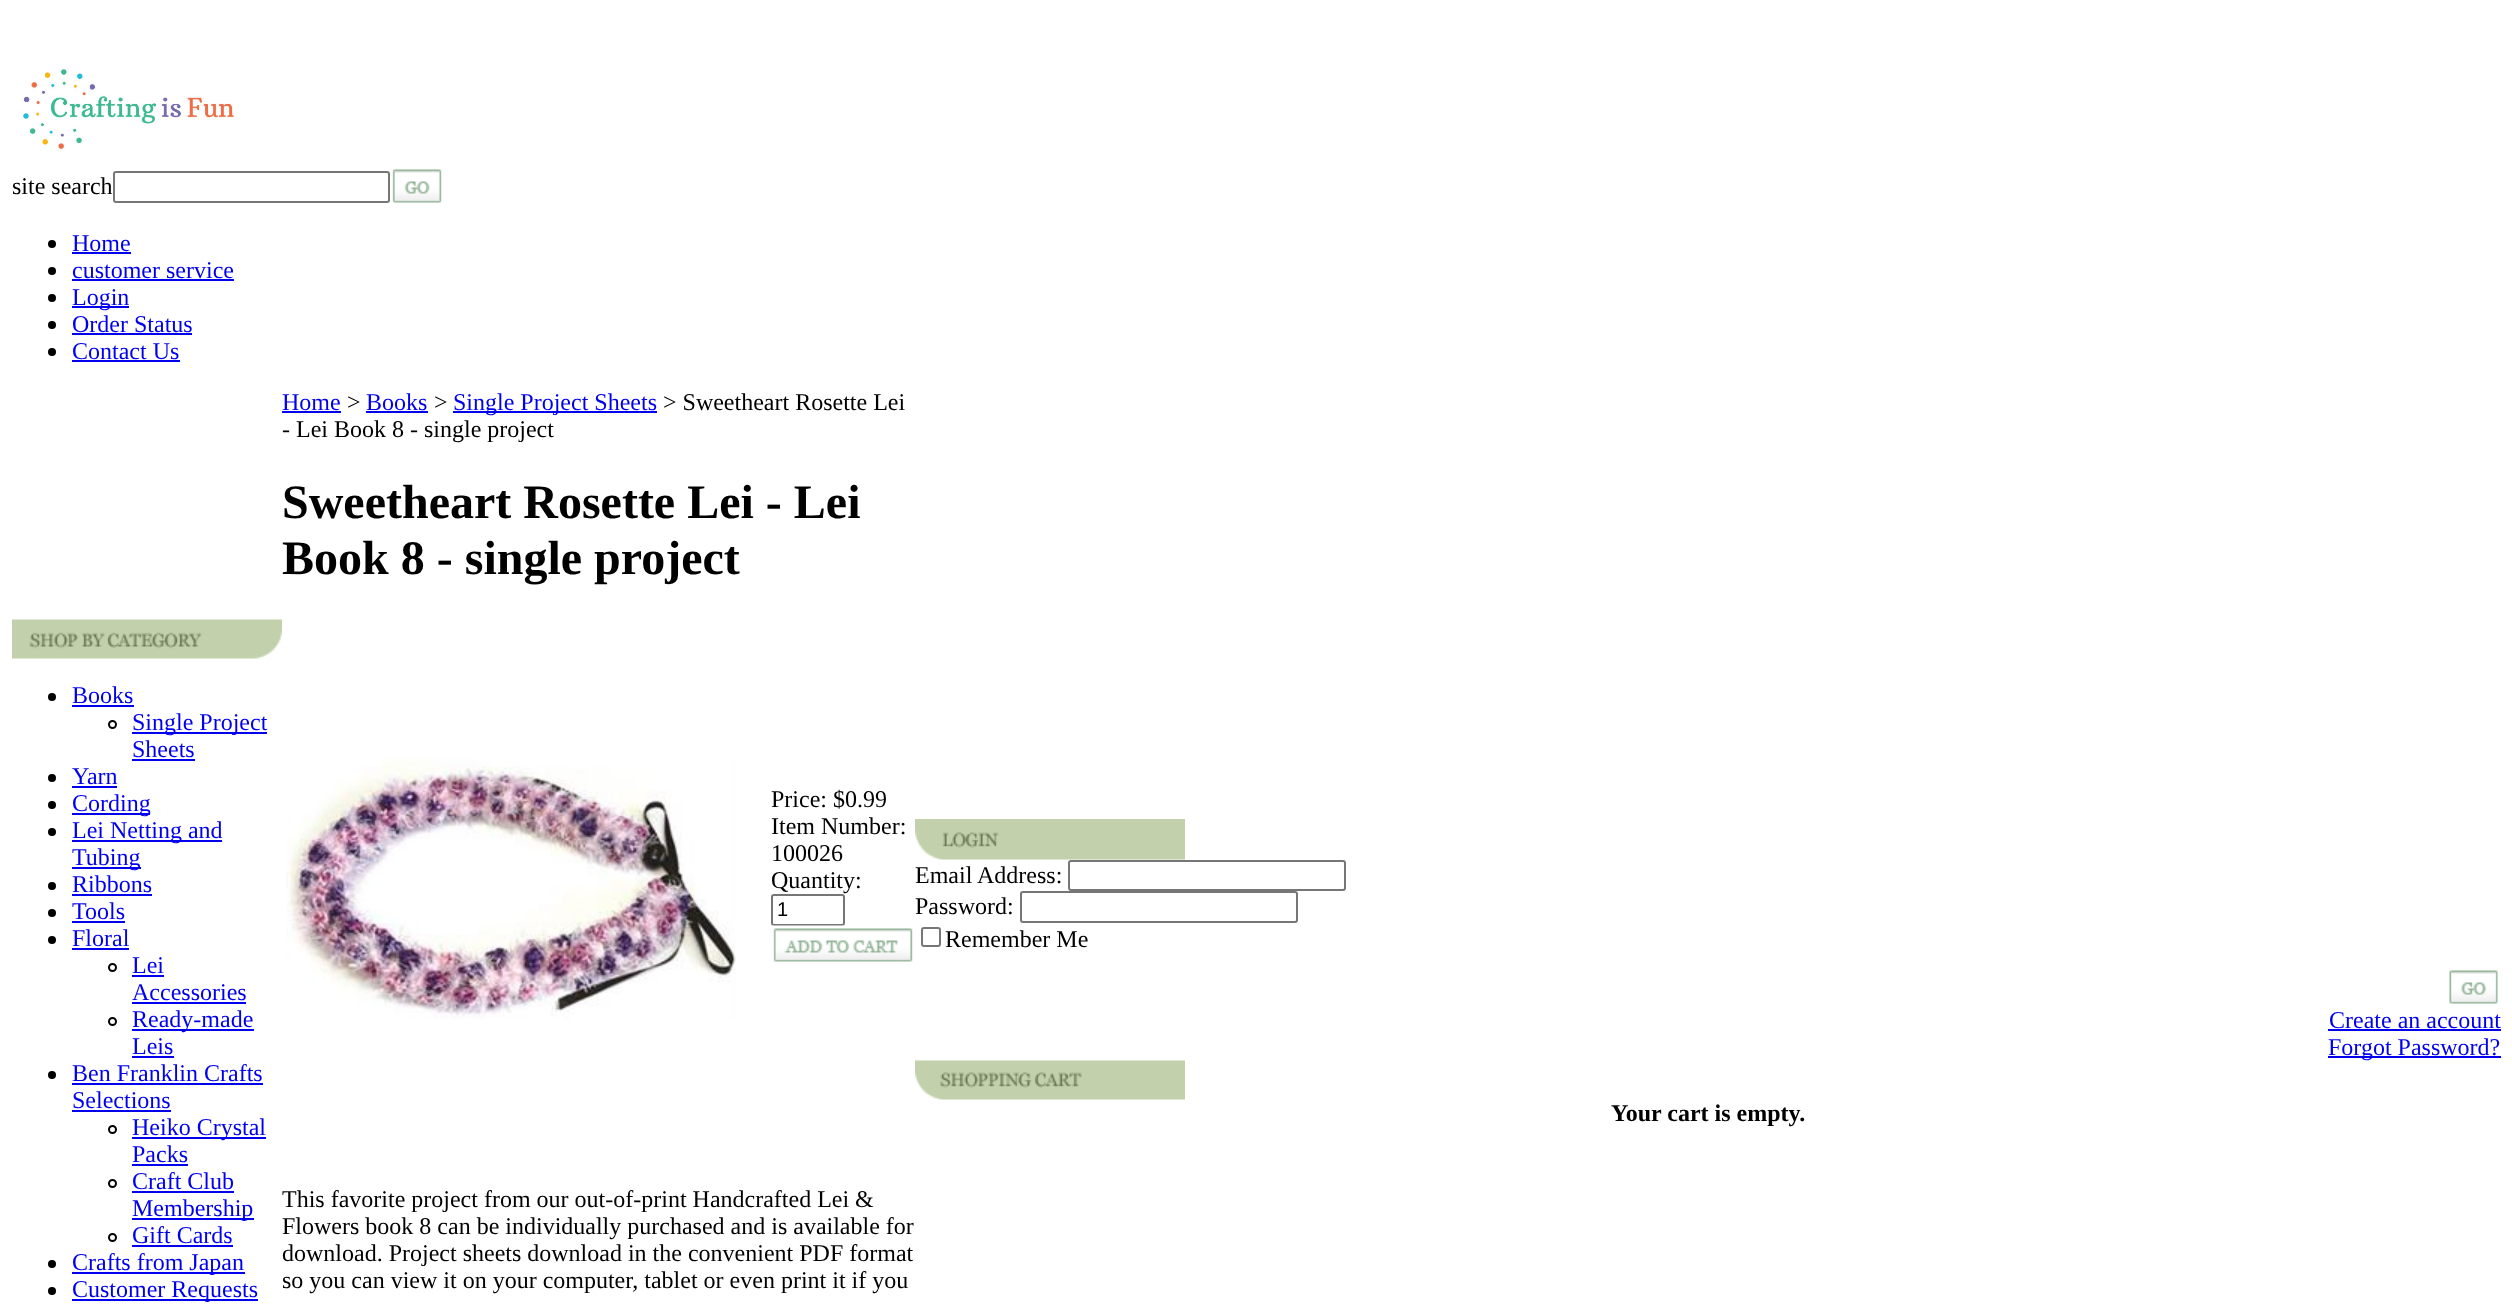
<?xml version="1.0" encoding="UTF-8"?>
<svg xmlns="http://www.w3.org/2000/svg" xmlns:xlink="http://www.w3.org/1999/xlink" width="2512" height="1311">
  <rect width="100%" height="100%" fill="#ffffff" />
  <image x="20" y="69" width="215" height="83" xlink:href="image1.png" />
  <rect x="114" y="172" width="275" height="30" rx="2" fill="none" stroke="#767676" stroke-width="2" />
  <image x="392" y="169" width="50" height="34" xlink:href="image2.png" />
  <circle cx="52" cy="244" r="4" fill="#000000" />
  <rect x="72" y="252" width="59" height="2" fill="#0000ee" />
  <circle cx="52" cy="271" r="4" fill="#000000" />
  <rect x="72" y="279" width="162" height="2" fill="#0000ee" />
  <circle cx="52" cy="298" r="4" fill="#000000" />
  <rect x="72" y="306" width="57" height="2" fill="#0000ee" />
  <circle cx="52" cy="325" r="4" fill="#000000" />
  <rect x="72" y="333" width="120" height="2" fill="#0000ee" />
  <circle cx="52" cy="352" r="4" fill="#000000" />
  <rect x="72" y="360" width="108" height="2" fill="#0000ee" />
  <image x="12" y="619" width="270" height="40" xlink:href="image3.png" />
  <circle cx="52" cy="697" r="4" fill="#000000" />
  <rect x="72" y="705" width="62" height="2" fill="#0000ee" />
  <circle cx="112.5" cy="724.5" r="3.5" fill="none" stroke="#000000" stroke-width="2" />
  <rect x="132" y="732" width="135" height="2" fill="#0000ee" />
  <rect x="132" y="759" width="63" height="2" fill="#0000ee" />
  <circle cx="52" cy="778" r="4" fill="#000000" />
  <rect x="72" y="786" width="45" height="2" fill="#0000ee" />
  <circle cx="52" cy="805" r="4" fill="#000000" />
  <rect x="72" y="813" width="78" height="2" fill="#0000ee" />
  <circle cx="52" cy="832" r="4" fill="#000000" />
  <rect x="72" y="840" width="150" height="2" fill="#0000ee" />
  <rect x="72" y="867" width="69" height="2" fill="#0000ee" />
  <circle cx="52" cy="886" r="4" fill="#000000" />
  <rect x="72" y="894" width="80" height="2" fill="#0000ee" />
  <circle cx="52" cy="913" r="4" fill="#000000" />
  <rect x="72" y="921" width="53" height="2" fill="#0000ee" />
  <circle cx="52" cy="940" r="4" fill="#000000" />
  <rect x="72" y="948" width="57" height="2" fill="#0000ee" />
  <circle cx="112.5" cy="967.5" r="3.5" fill="none" stroke="#000000" stroke-width="2" />
  <rect x="132" y="975" width="32" height="2" fill="#0000ee" />
  <rect x="132" y="1002" width="114" height="2" fill="#0000ee" />
  <circle cx="112.5" cy="1021.5" r="3.5" fill="none" stroke="#000000" stroke-width="2" />
  <rect x="132" y="1029" width="122" height="2" fill="#0000ee" />
  <rect x="132" y="1056" width="42" height="2" fill="#0000ee" />
  <circle cx="52" cy="1075" r="4" fill="#000000" />
  <rect x="72" y="1083" width="191" height="2" fill="#0000ee" />
  <rect x="72" y="1110" width="99" height="2" fill="#0000ee" />
  <circle cx="112.5" cy="1129.5" r="3.5" fill="none" stroke="#000000" stroke-width="2" />
  <rect x="132" y="1137" width="134" height="2" fill="#0000ee" />
  <rect x="132" y="1164" width="56" height="2" fill="#0000ee" />
  <circle cx="112.5" cy="1183.5" r="3.5" fill="none" stroke="#000000" stroke-width="2" />
  <rect x="132" y="1191" width="102" height="2" fill="#0000ee" />
  <rect x="132" y="1218" width="122" height="2" fill="#0000ee" />
  <circle cx="112.5" cy="1237.5" r="3.5" fill="none" stroke="#000000" stroke-width="2" />
  <rect x="132" y="1245" width="101" height="2" fill="#0000ee" />
  <circle cx="52" cy="1264" r="4" fill="#000000" />
  <rect x="72" y="1272" width="173" height="2" fill="#0000ee" />
  <circle cx="52" cy="1291" r="4" fill="#000000" />
  <rect x="72" y="1299" width="186" height="2" fill="#0000ee" />
  <rect x="282" y="411" width="59" height="2" fill="#0000ee" />
  <rect x="366" y="411" width="62" height="2" fill="#0000ee" />
  <rect x="453" y="411" width="204" height="2" fill="#0000ee" />
  <image x="286" y="758" width="451" height="261" xlink:href="image4.png" />
  <rect x="772" y="895" width="72" height="30" rx="2" fill="none" stroke="#767676" stroke-width="2" />
  <image x="772" y="925" width="141" height="37" xlink:href="image5.png" />
  <image x="915" y="819" width="270" height="41" xlink:href="image6.png" />
  <rect x="1069" y="861" width="276" height="29" rx="2" fill="none" stroke="#767676" stroke-width="2" />
  <rect x="1021" y="892" width="276" height="30" rx="2" fill="none" stroke="#767676" stroke-width="2" />
  <rect x="922" y="928" width="18" height="18" rx="2" fill="none" stroke="#767676" stroke-width="2" />
  <image x="2449" y="970" width="49" height="34" xlink:href="image7.png" />
  <rect x="2328" y="1029" width="173" height="2" fill="#0000ee" />
  <rect x="2328" y="1056" width="173" height="2" fill="#0000ee" />
  <image x="915" y="1060" width="270" height="40" xlink:href="image8.png" />
  <text x="12" y="194" style="font-family: Liberation Serif; font-size: 24px; fill: #000000">site search</text>
  <text x="72" y="251" style="font-family: Liberation Serif; font-size: 24px; fill: #0000ee">Home</text>
  <text x="72" y="278" style="font-family: Liberation Serif; font-size: 24px; fill: #0000ee">customer service</text>
  <text x="72" y="305" style="font-family: Liberation Serif; font-size: 24px; fill: #0000ee">Login</text>
  <text x="72" y="332" style="font-family: Liberation Serif; font-size: 24px; fill: #0000ee">Order Status</text>
  <text x="72" y="359" style="font-family: Liberation Serif; font-size: 24px; fill: #0000ee">Contact Us</text>
  <text x="72" y="703" style="font-family: Liberation Serif; font-size: 24px; fill: #0000ee">Books</text>
  <text x="132" y="730" style="font-family: Liberation Serif; font-size: 24px; fill: #0000ee">Single Project</text>
  <text x="132" y="757" style="font-family: Liberation Serif; font-size: 24px; fill: #0000ee">Sheets</text>
  <text x="72" y="784" style="font-family: Liberation Serif; font-size: 24px; fill: #0000ee">Yarn</text>
  <text x="72" y="811" style="font-family: Liberation Serif; font-size: 24px; fill: #0000ee">Cording</text>
  <text x="72" y="838" style="font-family: Liberation Serif; font-size: 24px; fill: #0000ee">Lei Netting and</text>
  <text x="72" y="865" style="font-family: Liberation Serif; font-size: 24px; fill: #0000ee">Tubing</text>
  <text x="72" y="892" style="font-family: Liberation Serif; font-size: 24px; fill: #0000ee">Ribbons</text>
  <text x="72" y="919" style="font-family: Liberation Serif; font-size: 24px; fill: #0000ee">Tools</text>
  <text x="72" y="946" style="font-family: Liberation Serif; font-size: 24px; fill: #0000ee">Floral</text>
  <text x="132" y="973" style="font-family: Liberation Serif; font-size: 24px; fill: #0000ee">Lei</text>
  <text x="132" y="1000" style="font-family: Liberation Serif; font-size: 24px; fill: #0000ee">Accessories</text>
  <text x="132" y="1027" style="font-family: Liberation Serif; font-size: 24px; fill: #0000ee">Ready-made</text>
  <text x="132" y="1054" style="font-family: Liberation Serif; font-size: 24px; fill: #0000ee">Leis</text>
  <text x="72" y="1081" style="font-family: Liberation Serif; font-size: 24px; fill: #0000ee">Ben Franklin Crafts</text>
  <text x="72" y="1108" style="font-family: Liberation Serif; font-size: 24px; fill: #0000ee">Selections</text>
  <text x="132" y="1135" style="font-family: Liberation Serif; font-size: 24px; fill: #0000ee">Heiko Crystal</text>
  <text x="132" y="1162" style="font-family: Liberation Serif; font-size: 24px; fill: #0000ee">Packs</text>
  <text x="132" y="1189" style="font-family: Liberation Serif; font-size: 24px; fill: #0000ee">Craft Club</text>
  <text x="132" y="1216" style="font-family: Liberation Serif; font-size: 24px; fill: #0000ee">Membership</text>
  <text x="132" y="1243" style="font-family: Liberation Serif; font-size: 24px; fill: #0000ee">Gift Cards</text>
  <text x="72" y="1270" style="font-family: Liberation Serif; font-size: 24px; fill: #0000ee">Crafts from Japan</text>
  <text x="72" y="1297" style="font-family: Liberation Serif; font-size: 24px; fill: #0000ee">Customer Requests</text>
  <text x="282" y="410" style="font-family: Liberation Serif; font-size: 24px; fill: #0000ee">Home</text>
  <text x="347" y="410" style="font-family: Liberation Serif; font-size: 24px; fill: #000000">&gt;</text>
  <text x="366" y="410" style="font-family: Liberation Serif; font-size: 24px; fill: #0000ee">Books</text>
  <text x="434" y="410" style="font-family: Liberation Serif; font-size: 24px; fill: #000000">&gt;</text>
  <text x="453" y="410" style="font-family: Liberation Serif; font-size: 24px; fill: #0000ee">Single Project Sheets</text>
  <text x="663" y="410" style="font-family: Liberation Serif; font-size: 24px; fill: #000000">&gt; Sweetheart Rosette Lei</text>
  <text x="282" y="437" style="font-family: Liberation Serif; font-size: 24px; fill: #000000">- Lei Book 8 - single project</text>
  <text x="282" y="518" style="font-family: Liberation Serif; font-size: 48px; font-weight: bold; fill: #000000">Sweetheart Rosette Lei - Lei</text>
  <text x="282" y="574" style="font-family: Liberation Serif; font-size: 48px; font-weight: bold; fill: #000000">Book 8 - single project</text>
  <text x="771" y="807" style="font-family: Liberation Serif; font-size: 24px; fill: #000000">Price: $0.99</text>
  <text x="771" y="834" style="font-family: Liberation Serif; font-size: 24px; fill: #000000">Item Number:</text>
  <text x="771" y="861" style="font-family: Liberation Serif; font-size: 24px; fill: #000000">100026</text>
  <text x="771" y="888" style="font-family: Liberation Serif; font-size: 24px; fill: #000000">Quantity:</text>
  <text x="777" y="916" style="font-family: Liberation Sans; font-size: 20px; fill: #000000">1</text>
  <text x="282" y="1207" style="font-family: Liberation Serif; font-size: 24px; fill: #000000">This favorite project from our out-of-print Handcrafted Lei &amp;</text>
  <text x="282" y="1234" style="font-family: Liberation Serif; font-size: 24px; fill: #000000">Flowers book 8 can be individually purchased and is available for</text>
  <text x="282" y="1261" style="font-family: Liberation Serif; font-size: 24px; fill: #000000">download. Project sheets download in the convenient PDF format</text>
  <text x="282" y="1288" style="font-family: Liberation Serif; font-size: 24px; fill: #000000">so you can view it on your computer, tablet or even print it if you</text>
  <text x="915" y="883" style="font-family: Liberation Serif; font-size: 24px; fill: #000000">Email Address:</text>
  <text x="915" y="914" style="font-family: Liberation Serif; font-size: 24px; fill: #000000">Password:</text>
  <text x="945" y="947" style="font-family: Liberation Serif; font-size: 24px; fill: #000000">Remember Me</text>
  <text x="2329" y="1028" style="font-family: Liberation Serif; font-size: 24px; fill: #0000ee">Create an account</text>
  <text x="2328" y="1055" style="font-family: Liberation Serif; font-size: 24px; fill: #0000ee">Forgot Password?</text>
  <text x="1611" y="1121" style="font-family: Liberation Serif; font-size: 24px; font-weight: bold; fill: #000000">Your cart is empty.</text>
</svg>
